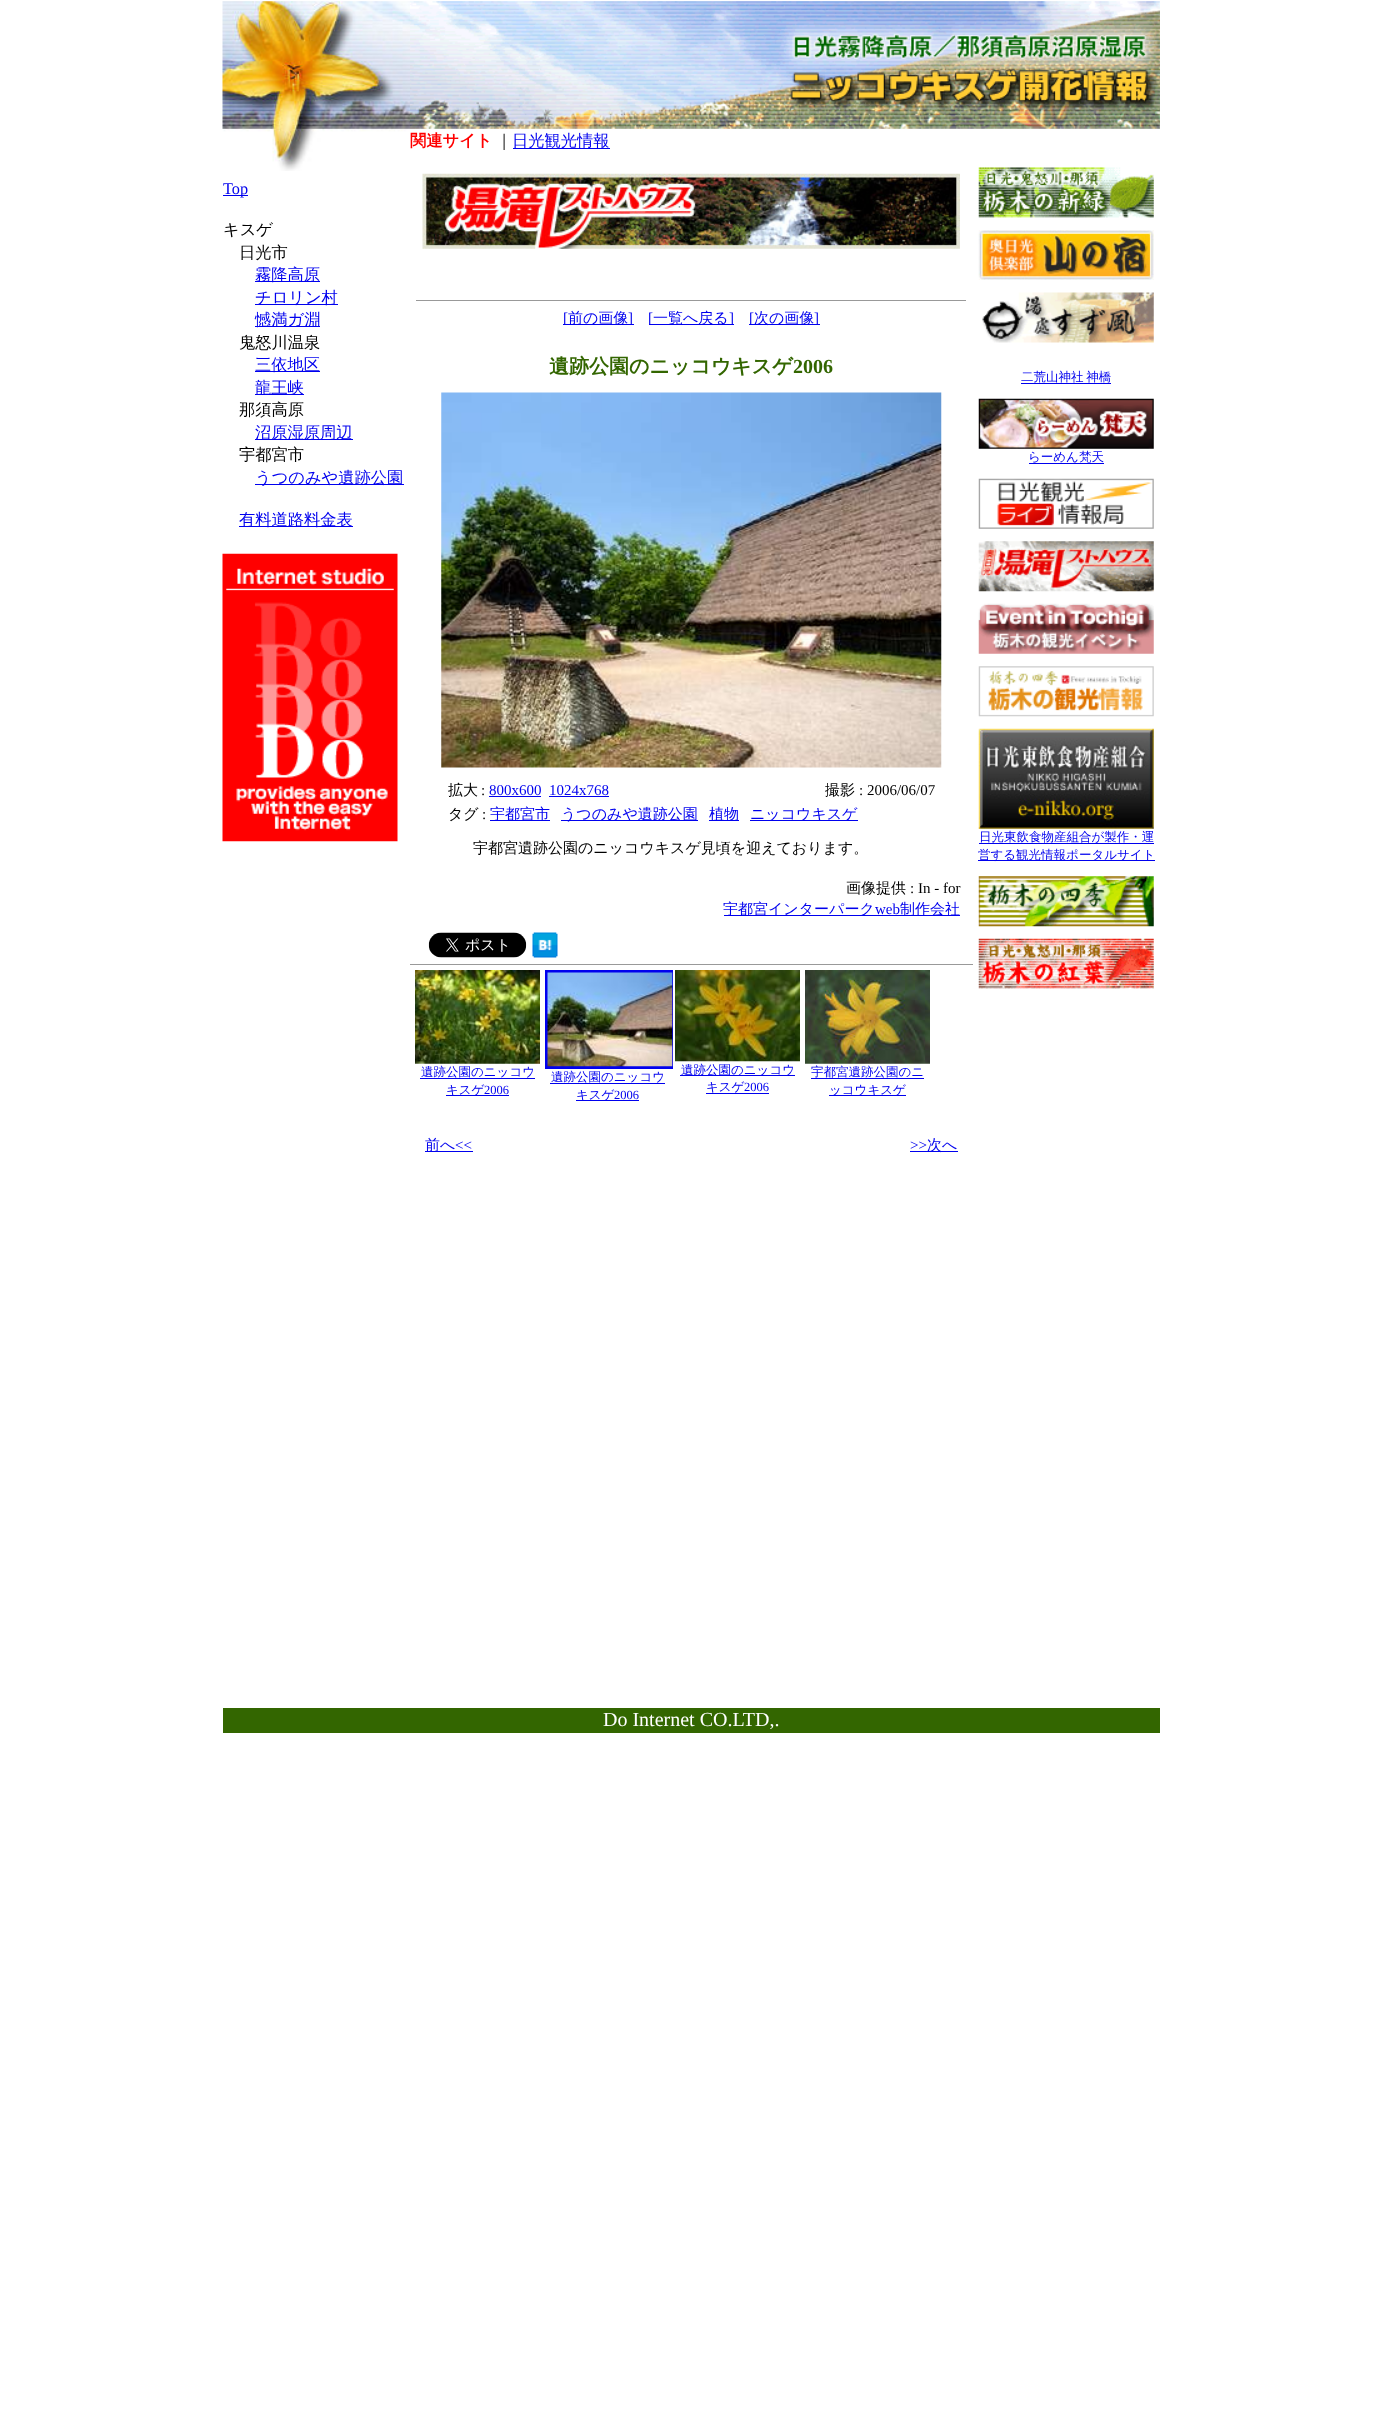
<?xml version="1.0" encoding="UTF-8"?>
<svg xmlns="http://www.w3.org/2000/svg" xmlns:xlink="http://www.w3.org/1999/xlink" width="1383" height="2410">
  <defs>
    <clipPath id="clip1"><rect x="543" y="968" width="130" height="155" /></clipPath>
  </defs>
  <rect width="100%" height="100%" fill="#ffffff" />
  <image x="222" y="1" width="188" height="170" xlink:href="image1.png" />
  <image x="410" y="1" width="750" height="128" xlink:href="image2.png" />
  <rect x="513" y="148" width="97" height="1" fill="#0000ee" />
  <rect x="223" y="195" width="25" height="1" fill="#0000ee" />
  <rect x="255" y="281" width="65" height="1" fill="#0000ee" />
  <rect x="255" y="304" width="83" height="1" fill="#0000ee" />
  <rect x="255" y="326" width="65" height="1" fill="#0000ee" />
  <rect x="255" y="371" width="65" height="1" fill="#0000ee" />
  <rect x="255" y="394" width="49" height="1" fill="#0000ee" />
  <rect x="255" y="439" width="98" height="1" fill="#0000ee" />
  <rect x="255" y="484" width="149" height="1" fill="#0000ee" />
  <rect x="239" y="526" width="114" height="1" fill="#0000ee" />
  <image x="222" y="553" width="176" height="289" xlink:href="image3.png" />
  <image x="422" y="173" width="538" height="76" xlink:href="image4.png" />
  <rect x="416" y="300" width="550" height="1" fill="#999999" />
  <rect x="563" y="324" width="71" height="1" fill="#0000ee" />
  <rect x="649" y="324" width="85" height="1" fill="#0000ee" />
  <rect x="749" y="324" width="71" height="1" fill="#0000ee" />
  <image x="441" y="392" width="501" height="376" xlink:href="image5.png" />
  <rect x="489" y="796" width="52" height="1" fill="#0000ee" />
  <rect x="549" y="796" width="60" height="1" fill="#0000ee" />
  <rect x="490" y="820" width="60" height="1" fill="#0000ee" />
  <rect x="561" y="820" width="137" height="1" fill="#0000ee" />
  <rect x="709" y="820" width="30" height="1" fill="#0000ee" />
  <rect x="750" y="820" width="108" height="1" fill="#0000ee" />
  <rect x="724" y="915" width="236" height="1" fill="#0000ee" />
  <image x="428" y="932" width="99" height="26" xlink:href="image6.png" />
  <image x="532" y="932" width="26" height="26" xlink:href="image7.png" />
  <rect x="410" y="964" width="563" height="1" fill="#999999" />
  <image x="415" y="970" width="125" height="94" xlink:href="image8.png" />
  <rect x="420" y="1078" width="115" height="1" fill="#0000ee" />
  <rect x="446" y="1095" width="63" height="1" fill="#0000ee" />
  <g clip-path="url(#clip1)">
    <rect x="546.5" y="971.5" width="127" height="96" fill="none" stroke="#0000ee" stroke-width="3" />
  </g>
  <image x="547" y="972" width="126" height="95" xlink:href="image9.png" />
  <rect x="550" y="1083" width="115" height="1" fill="#0000ee" />
  <rect x="576" y="1100" width="63" height="1" fill="#0000ee" />
  <image x="675" y="970" width="125" height="92" xlink:href="image10.png" />
  <rect x="680" y="1075" width="115" height="1" fill="#0000ee" />
  <rect x="706" y="1093" width="63" height="1" fill="#0000ee" />
  <image x="805" y="970" width="125" height="94" xlink:href="image11.png" />
  <rect x="811" y="1078" width="113" height="1" fill="#0000ee" />
  <rect x="829" y="1095" width="77" height="1" fill="#0000ee" />
  <rect x="425" y="1151" width="48" height="1" fill="#0000ee" />
  <rect x="910" y="1151" width="48" height="1" fill="#0000ee" />
  <image x="978" y="167" width="176" height="51" xlink:href="image12.png" />
  <image x="978" y="230" width="176" height="50" xlink:href="image13.png" />
  <image x="982" y="292" width="172" height="51" xlink:href="image14.png" />
  <rect x="1021" y="383" width="90" height="1" fill="#0000ee" />
  <image x="978" y="398" width="176" height="51" xlink:href="image15.png" />
  <rect x="1029" y="463" width="75" height="1" fill="#0000ee" />
  <image x="978" y="478" width="176" height="51" xlink:href="image16.png" />
  <image x="978" y="541" width="176" height="51" xlink:href="image17.png" />
  <image x="978" y="603" width="176" height="51" xlink:href="image18.png" />
  <image x="978" y="666" width="176" height="51" xlink:href="image19.png" />
  <image x="978" y="728" width="176" height="101" xlink:href="image20.png" />
  <rect x="979" y="843" width="175" height="1" fill="#0000ee" />
  <rect x="978" y="860" width="177" height="1" fill="#0000ee" />
  <image x="978" y="876" width="176" height="51" xlink:href="image21.png" />
  <image x="978" y="938" width="176" height="51" xlink:href="image22.png" />
  <rect x="223" y="1708" width="937" height="25" fill="#336600" />
  <text x="410" y="146" style="font-family: WenQuanYi Zen Hei; font-size: 16.25px; font-weight: bold; fill: #ff0000">関連サイト</text>
  <text x="496" y="146" style="font-family: WenQuanYi Zen Hei; font-size: 16.25px; font-weight: 500; fill: #000000">｜</text>
  <text x="512" y="146" style="font-family: WenQuanYi Zen Hei; font-size: 16.25px; font-weight: 500; fill: #0000ee">日光観光情報</text>
  <text x="223" y="194" style="font-family: Liberation Serif; font-size: 16.25px; fill: #0000ee">Top</text>
  <text x="223" y="235" style="font-family: WenQuanYi Zen Hei; font-size: 16.25px; font-weight: 500; fill: #000000">キスゲ</text>
  <text x="239" y="258" style="font-family: WenQuanYi Zen Hei; font-size: 16.25px; font-weight: 500; fill: #000000">日光市</text>
  <text x="255" y="280" style="font-family: WenQuanYi Zen Hei; font-size: 16.25px; font-weight: 500; fill: #0000ee">霧降高原</text>
  <text x="255" y="303" style="font-family: WenQuanYi Zen Hei; font-size: 16.25px; font-weight: 500; fill: #0000ee">チロリン村</text>
  <text x="255" y="325" style="font-family: WenQuanYi Zen Hei; font-size: 16.25px; font-weight: 500; fill: #0000ee">憾満ガ淵</text>
  <text x="239" y="348" style="font-family: WenQuanYi Zen Hei; font-size: 16.25px; font-weight: 500; fill: #000000">鬼怒川温泉</text>
  <text x="255" y="370" style="font-family: WenQuanYi Zen Hei; font-size: 16.25px; font-weight: 500; fill: #0000ee">三依地区</text>
  <text x="255" y="393" style="font-family: WenQuanYi Zen Hei; font-size: 16.25px; font-weight: 500; fill: #0000ee">龍王峡</text>
  <text x="239" y="415" style="font-family: WenQuanYi Zen Hei; font-size: 16.25px; font-weight: 500; fill: #000000">那須高原</text>
  <text x="255" y="438" style="font-family: WenQuanYi Zen Hei; font-size: 16.25px; font-weight: 500; fill: #0000ee">沼原湿原周辺</text>
  <text x="239" y="460" style="font-family: WenQuanYi Zen Hei; font-size: 16.25px; font-weight: 500; fill: #000000">宇都宮市</text>
  <text x="255" y="483" style="font-family: WenQuanYi Zen Hei; font-size: 16.25px; font-weight: 500; fill: #0000ee">うつのみや遺跡公園</text>
  <text x="239" y="525" style="font-family: WenQuanYi Zen Hei; font-size: 16.25px; font-weight: 500; fill: #0000ee">有料道路料金表</text>
  <text x="563" y="323" style="font-family: Liberation Serif; font-size: 15px; fill: #0000ee">[</text>
  <text x="568" y="323" style="font-family: WenQuanYi Zen Hei; font-size: 15px; font-weight: 500; fill: #0000ee">前の画像</text>
  <text x="628" y="323" style="font-family: Liberation Serif; font-size: 15px; fill: #0000ee">]</text>
  <text x="648" y="323" style="font-family: Liberation Serif; font-size: 15px; fill: #0000ee">[</text>
  <text x="653" y="323" style="font-family: WenQuanYi Zen Hei; font-size: 15px; font-weight: 500; fill: #0000ee">一覧へ戻る</text>
  <text x="729" y="323" style="font-family: Liberation Serif; font-size: 15px; fill: #0000ee">]</text>
  <text x="749" y="323" style="font-family: Liberation Serif; font-size: 15px; fill: #0000ee">[</text>
  <text x="754" y="323" style="font-family: WenQuanYi Zen Hei; font-size: 15px; font-weight: 500; fill: #0000ee">次の画像</text>
  <text x="814" y="323" style="font-family: Liberation Serif; font-size: 15px; fill: #0000ee">]</text>
  <text x="549" y="373" style="font-family: WenQuanYi Zen Hei; font-size: 20px; font-weight: bold; fill: #336600">遺跡公園のニッコウキスゲ</text>
  <text x="793" y="373" style="font-family: Liberation Serif; font-size: 20px; font-weight: bold; fill: #336600">2006</text>
  <text x="448" y="795" style="font-family: WenQuanYi Zen Hei; font-size: 15px; font-weight: 500; fill: #000000">拡大</text>
  <text x="481" y="795" style="font-family: Liberation Serif; font-size: 15px; fill: #000000">:</text>
  <text x="489" y="795" style="font-family: Liberation Serif; font-size: 15px; fill: #0000ee">800x600</text>
  <text x="549" y="795" style="font-family: Liberation Serif; font-size: 15px; fill: #0000ee">1024x768</text>
  <text x="825" y="795" style="font-family: WenQuanYi Zen Hei; font-size: 15px; font-weight: 500; fill: #000000">撮影</text>
  <text x="859" y="795" style="font-family: Liberation Serif; font-size: 15px; fill: #000000">: 2006/06/07</text>
  <text x="448" y="819" style="font-family: WenQuanYi Zen Hei; font-size: 15px; font-weight: 500; fill: #000000">タグ</text>
  <text x="482" y="819" style="font-family: Liberation Serif; font-size: 15px; fill: #000000">:</text>
  <text x="490" y="819" style="font-family: WenQuanYi Zen Hei; font-size: 15px; font-weight: 500; fill: #0000ee">宇都宮市</text>
  <text x="561" y="819" style="font-family: WenQuanYi Zen Hei; font-size: 15px; font-weight: 500; fill: #0000ee">うつのみや遺跡公園</text>
  <text x="709" y="819" style="font-family: WenQuanYi Zen Hei; font-size: 15px; font-weight: 500; fill: #0000ee">植物</text>
  <text x="750" y="819" style="font-family: WenQuanYi Zen Hei; font-size: 15px; font-weight: 500; fill: #0000ee">ニッコウキスゲ</text>
  <text x="473" y="853" style="font-family: WenQuanYi Zen Hei; font-size: 15px; font-weight: 500; fill: #000000">宇都宮遺跡公園のニッコウキスゲ見頃を迎えております。</text>
  <text x="846" y="893" style="font-family: WenQuanYi Zen Hei; font-size: 15px; font-weight: 500; fill: #000000">画像提供</text>
  <text x="910" y="893" style="font-family: Liberation Serif; font-size: 15px; fill: #000000">: In - for</text>
  <text x="723" y="914" style="font-family: WenQuanYi Zen Hei; font-size: 15px; font-weight: 500; fill: #0000ee">宇都宮インターパーク</text>
  <text x="875" y="914" style="font-family: Liberation Serif; font-size: 15px; fill: #0000ee">web</text>
  <text x="900" y="914" style="font-family: WenQuanYi Zen Hei; font-size: 15px; font-weight: 500; fill: #0000ee">制作会社</text>
  <text x="421" y="1076" style="font-family: WenQuanYi Zen Hei; font-size: 12.5px; font-weight: 500; fill: #0000ee">遺跡公園のニッコウ</text>
  <text x="446" y="1094" style="font-family: WenQuanYi Zen Hei; font-size: 12.5px; font-weight: 500; fill: #0000ee">キスゲ</text>
  <text x="484" y="1094" style="font-family: Liberation Serif; font-size: 12.5px; fill: #0000ee">2006</text>
  <text x="551" y="1081" style="font-family: WenQuanYi Zen Hei; font-size: 12.5px; font-weight: 500; fill: #0000ee">遺跡公園のニッコウ</text>
  <text x="576" y="1099" style="font-family: WenQuanYi Zen Hei; font-size: 12.5px; font-weight: 500; fill: #0000ee">キスゲ</text>
  <text x="614" y="1099" style="font-family: Liberation Serif; font-size: 12.5px; fill: #0000ee">2006</text>
  <text x="681" y="1074" style="font-family: WenQuanYi Zen Hei; font-size: 12.5px; font-weight: 500; fill: #0000ee">遺跡公園のニッコウ</text>
  <text x="706" y="1091" style="font-family: WenQuanYi Zen Hei; font-size: 12.5px; font-weight: 500; fill: #0000ee">キスゲ</text>
  <text x="744" y="1091" style="font-family: Liberation Serif; font-size: 12.5px; fill: #0000ee">2006</text>
  <text x="811" y="1076" style="font-family: WenQuanYi Zen Hei; font-size: 12.5px; font-weight: 500; fill: #0000ee">宇都宮遺跡公園のニ</text>
  <text x="829" y="1094" style="font-family: WenQuanYi Zen Hei; font-size: 12.5px; font-weight: 500; fill: #0000ee">ッコウキスゲ</text>
  <text x="425" y="1150" style="font-family: WenQuanYi Zen Hei; font-size: 15px; font-weight: 500; fill: #0000ee">前へ</text>
  <text x="455" y="1150" style="font-family: Liberation Serif; font-size: 15px; fill: #0000ee">&lt;&lt;</text>
  <text x="910" y="1150" style="font-family: Liberation Serif; font-size: 15px; fill: #0000ee">&gt;&gt;</text>
  <text x="927" y="1150" style="font-family: WenQuanYi Zen Hei; font-size: 15px; font-weight: 500; fill: #0000ee">次へ</text>
  <text x="1021" y="381" word-spacing="-1" style="font-family: WenQuanYi Zen Hei; font-size: 12.5px; font-weight: 500; fill: #0000ee">二荒山神社 神橋</text>
  <text x="1028" y="461" style="font-family: WenQuanYi Zen Hei; font-size: 12.5px; font-weight: 500; fill: #0000ee">らーめん梵天</text>
  <text x="979" y="841" style="font-family: WenQuanYi Zen Hei; font-size: 12.5px; font-weight: 500; fill: #0000ee">日光東飲食物産組合が製作・運</text>
  <text x="978" y="859" style="font-family: WenQuanYi Zen Hei; font-size: 12.5px; font-weight: 500; fill: #0000ee">営する観光情報ポータルサイト</text>
  <text x="603" y="1726" style="font-family: Liberation Serif; font-size: 20px; fill: #ffffff">Do Internet CO.LTD,.</text>
</svg>
